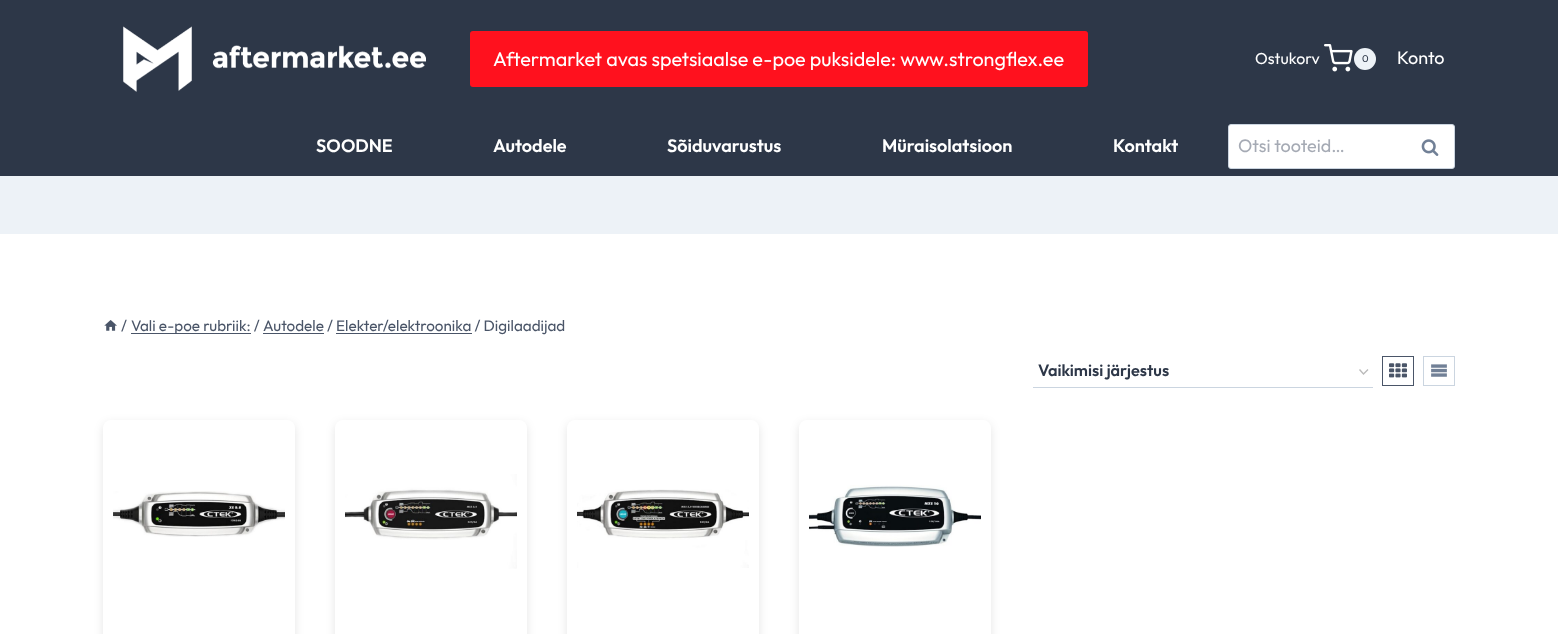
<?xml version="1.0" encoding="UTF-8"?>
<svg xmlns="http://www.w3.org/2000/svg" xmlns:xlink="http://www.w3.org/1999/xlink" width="1558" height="634">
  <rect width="100%" height="100%" fill="#ffffff" />
  <rect y="176" width="1558" height="58" fill="#edf2f7" />
  <rect width="1558" height="176" fill="#2d3748" />
  <image x="123" y="26" width="303" height="66" xlink:href="image1.png" />
  <rect x="470" y="31" width="618" height="56" rx="3" fill="#ff111e" />
  <image x="1324" y="44" width="29" height="28" xlink:href="image2.png" />
  <circle cx="1365" cy="59" r="11" fill="#edf2f7" />
  <rect x="1228.5" y="124.5" width="226" height="44" rx="2.5" fill="#ffffff" stroke="#cbd5e0" />
  <image x="1421" y="139" width="18" height="17" xlink:href="image3.png" />
  <image x="104" y="320" width="13" height="11" xlink:href="image4.png" />
  <rect x="131" y="333" width="120" height="1" fill="#4a5568" />
  <rect x="263" y="333" width="61" height="1" fill="#4a5568" />
  <rect x="336" y="333" width="136" height="1" fill="#4a5568" />
  <path d="M 1359.5 369.5 l 4 4.5 l 4.5 -4.5" fill="none" stroke="#bbbbbb" stroke-width="1.4" />
  <rect x="1033" y="387" width="340" height="1" fill="#cbd5e0" />
  <rect x="1382.5" y="356.5" width="31" height="29" fill="none" stroke="#4a5568" />
  <image x="1389" y="363" width="18" height="15" xlink:href="image5.png" />
  <rect x="1423.5" y="356.5" width="31" height="29" fill="none" stroke="#cbd5e0" />
  <image x="1431" y="364" width="16" height="13" xlink:href="image6.png" />
  <rect x="103" y="423" width="192" height="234" rx="8" fill="#000000" fill-opacity="0.1" filter="blur(5px)" />
  <rect x="103" y="420" width="192" height="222" rx="8" fill="#ffffff" />
  <image x="113" y="491" width="172" height="46" xlink:href="image7.png" />
  <rect x="335" y="423" width="192" height="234" rx="8" fill="#000000" fill-opacity="0.1" filter="blur(5px)" />
  <rect x="335" y="420" width="192" height="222" rx="8" fill="#ffffff" />
  <image x="345" y="474" width="172" height="95" xlink:href="image8.png" />
  <rect x="567" y="423" width="192" height="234" rx="8" fill="#000000" fill-opacity="0.1" filter="blur(5px)" />
  <rect x="567" y="420" width="192" height="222" rx="8" fill="#ffffff" />
  <image x="577" y="489" width="172" height="79" xlink:href="image9.png" />
  <rect x="799" y="423" width="192" height="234" rx="8" fill="#000000" fill-opacity="0.1" filter="blur(5px)" />
  <rect x="799" y="420" width="192" height="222" rx="8" fill="#ffffff" />
  <image x="809" y="485" width="172" height="62" xlink:href="image10.png" />
  <text x="493" y="66" style="font-family: Outfit; font-size: 19.8px; fill: #ffffff">Aftermarket avas spetsiaalse e-poe puksidele: www.strongflex.ee</text>
  <text x="1255" y="64" style="font-family: Outfit; font-size: 16px; fill: #ffffff">Ostukorv</text>
  <text x="1362" y="62" style="font-family: Outfit; font-size: 10px; fill: #2d3748">0</text>
  <text x="1397" y="64" style="font-family: Outfit; font-size: 18px; fill: #ffffff">Konto</text>
  <text x="316" y="152" style="font-family: Outfit; font-size: 18px; font-weight: 600; fill: #ffffff">SOODNE</text>
  <text x="493" y="152" style="font-family: Outfit; font-size: 18px; font-weight: 600; fill: #ffffff">Autodele</text>
  <text x="667" y="152" style="font-family: Outfit; font-size: 18px; font-weight: 600; fill: #ffffff">Sõiduvarustus</text>
  <text x="882" y="152" style="font-family: Outfit; font-size: 18px; font-weight: 600; fill: #ffffff">Müraisolatsioon</text>
  <text x="1113" y="152" style="font-family: Outfit; font-size: 18px; font-weight: 600; fill: #ffffff">Kontakt</text>
  <text x="1238" y="152" style="font-family: Outfit; font-size: 18px; fill: #a5aab4">Otsi tooteid…</text>
  <text x="121" y="331" style="font-family: Outfit; font-size: 15.25px; fill: #4a5568">/</text>
  <text x="131" y="331" style="font-family: Outfit; font-size: 15.25px; fill: #4a5568">Vali e-poe rubriik: /</text>
  <text x="263" y="331" style="font-family: Outfit; font-size: 15.25px; fill: #4a5568">Autodele / E‌lekter/elektroonika / Digilaadijad</text>
  <text x="1038" y="376" style="font-family: Outfit; font-size: 16.25px; font-weight: 600; fill: #2d3748">Vaikimisi järjestus</text>
</svg>
